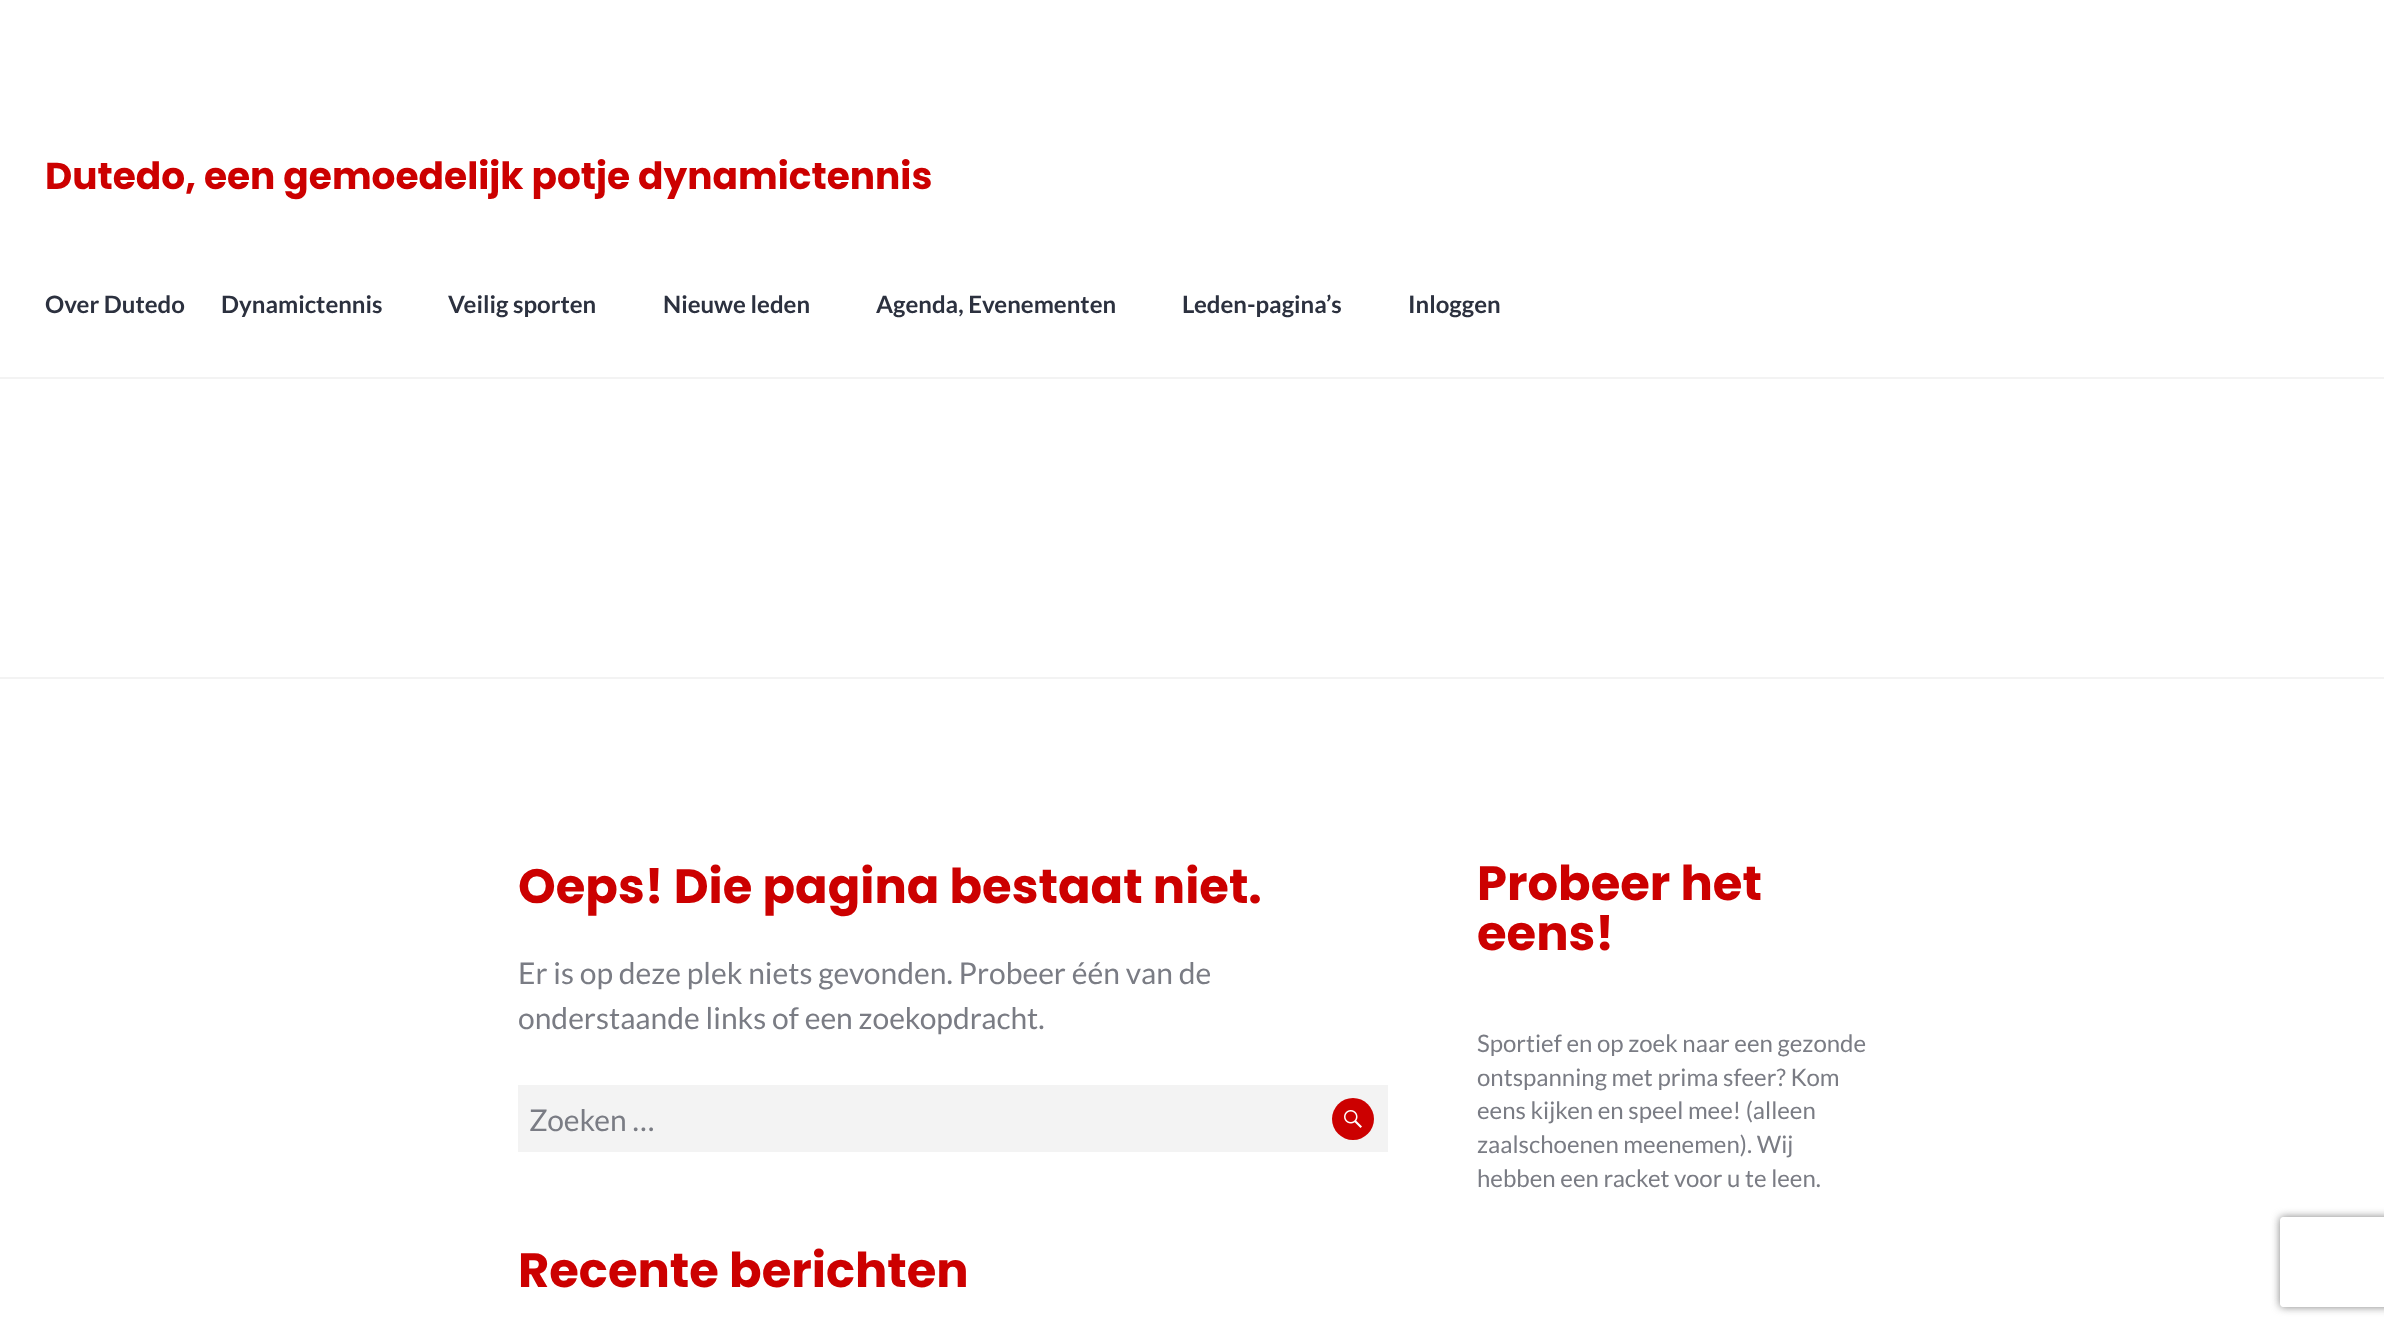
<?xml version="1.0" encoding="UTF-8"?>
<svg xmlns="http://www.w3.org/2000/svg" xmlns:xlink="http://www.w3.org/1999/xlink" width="2384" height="1327">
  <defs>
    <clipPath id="clip1"><path d="M 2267 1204 h 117 v 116 h -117 z m 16 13 h 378 c 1.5 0 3 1.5 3 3 v 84 c 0 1.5 -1.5 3 -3 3 h -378 c -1.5 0 -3 -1.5 -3 -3 v -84 c 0 -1.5 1.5 -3 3 -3 z" clip-rule="evenodd" /></clipPath>
  </defs>
  <rect width="100%" height="100%" fill="#ffffff" />
  <rect y="377" width="2384" height="2" fill="#f3f3f3" />
  <rect y="677" width="2384" height="2" fill="#f3f3f3" />
  <rect x="518" y="1085" width="870" height="67" fill="#f3f3f3" />
  <circle cx="1353" cy="1119" r="21" fill="#cc0000" />
  <image x="1344" y="1110" width="18" height="18" xlink:href="image1.png" />
  <g clip-path="url(#clip1)">
    <rect x="2280" y="1217" width="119" height="90" rx="3" fill="#808080" filter="blur(4px)" />
  </g>
  <text x="45" y="189" style="font-family: Poppins; font-size: 37.5px; font-weight: bold; fill: #cc0000">Dutedo, een gemoedelijk potje dynamictennis</text>
  <text x="45" y="313" style="font-family: Lato; font-size: 24px; font-weight: bold; fill: #2c313f">Over Dutedo</text>
  <text x="221" y="313" style="font-family: Lato; font-size: 24px; font-weight: bold; fill: #2c313f">Dynamictennis</text>
  <text x="448" y="313" style="font-family: Lato; font-size: 24px; font-weight: bold; fill: #2c313f">Veilig sporten</text>
  <text x="663" y="313" style="font-family: Lato; font-size: 24px; font-weight: bold; fill: #2c313f">Nieuwe leden</text>
  <text x="876" y="313" style="font-family: Lato; font-size: 24px; font-weight: bold; fill: #2c313f">Agenda, Evenementen</text>
  <text x="1182" y="313" style="font-family: Lato; font-size: 24px; font-weight: bold; fill: #2c313f">Leden-pagina’s</text>
  <text x="1408" y="313" style="font-family: Lato; font-size: 24px; font-weight: bold; fill: #2c313f">Inloggen</text>
  <text x="518" y="903" style="font-family: Poppins; font-size: 48px; font-weight: bold; fill: #cc0000">Oeps! Die pagina bestaat niet.</text>
  <text x="518" y="984" style="font-family: Lato; font-size: 30px; fill: #7a7c84">Er is op deze plek niets gevonden. Probeer één van de</text>
  <text x="518" y="1029" style="font-family: Lato; font-size: 30px; fill: #7a7c84">onderstaande links of een zoekopdracht.</text>
  <text x="529" y="1131" style="font-family: Lato; font-size: 30px; fill: #7a7c84">Zoeken …</text>
  <text x="518" y="1287" style="font-family: Poppins; font-size: 48px; font-weight: bold; fill: #cc0000">Recente berichten</text>
  <text x="1477" y="900" style="font-family: Poppins; font-size: 48px; font-weight: bold; fill: #cc0000">Probeer het</text>
  <text x="1477" y="950" style="font-family: Poppins; font-size: 48px; font-weight: bold; fill: #cc0000">eens!</text>
  <text x="1477" y="1052" style="font-family: Lato; font-size: 24px; fill: #7a7c84">Sportief en op zoek naar een gezonde</text>
  <text x="1477" y="1086" style="font-family: Lato; font-size: 24px; fill: #7a7c84">ontspanning met prima sfeer? Kom</text>
  <text x="1477" y="1119" style="font-family: Lato; font-size: 24px; fill: #7a7c84">eens kijken en speel mee! (alleen</text>
  <text x="1477" y="1153" style="font-family: Lato; font-size: 24px; fill: #7a7c84">zaalschoenen meenemen). Wij</text>
  <text x="1477" y="1187" style="font-family: Lato; font-size: 24px; fill: #7a7c84">hebben een racket voor u te leen.</text>
</svg>
